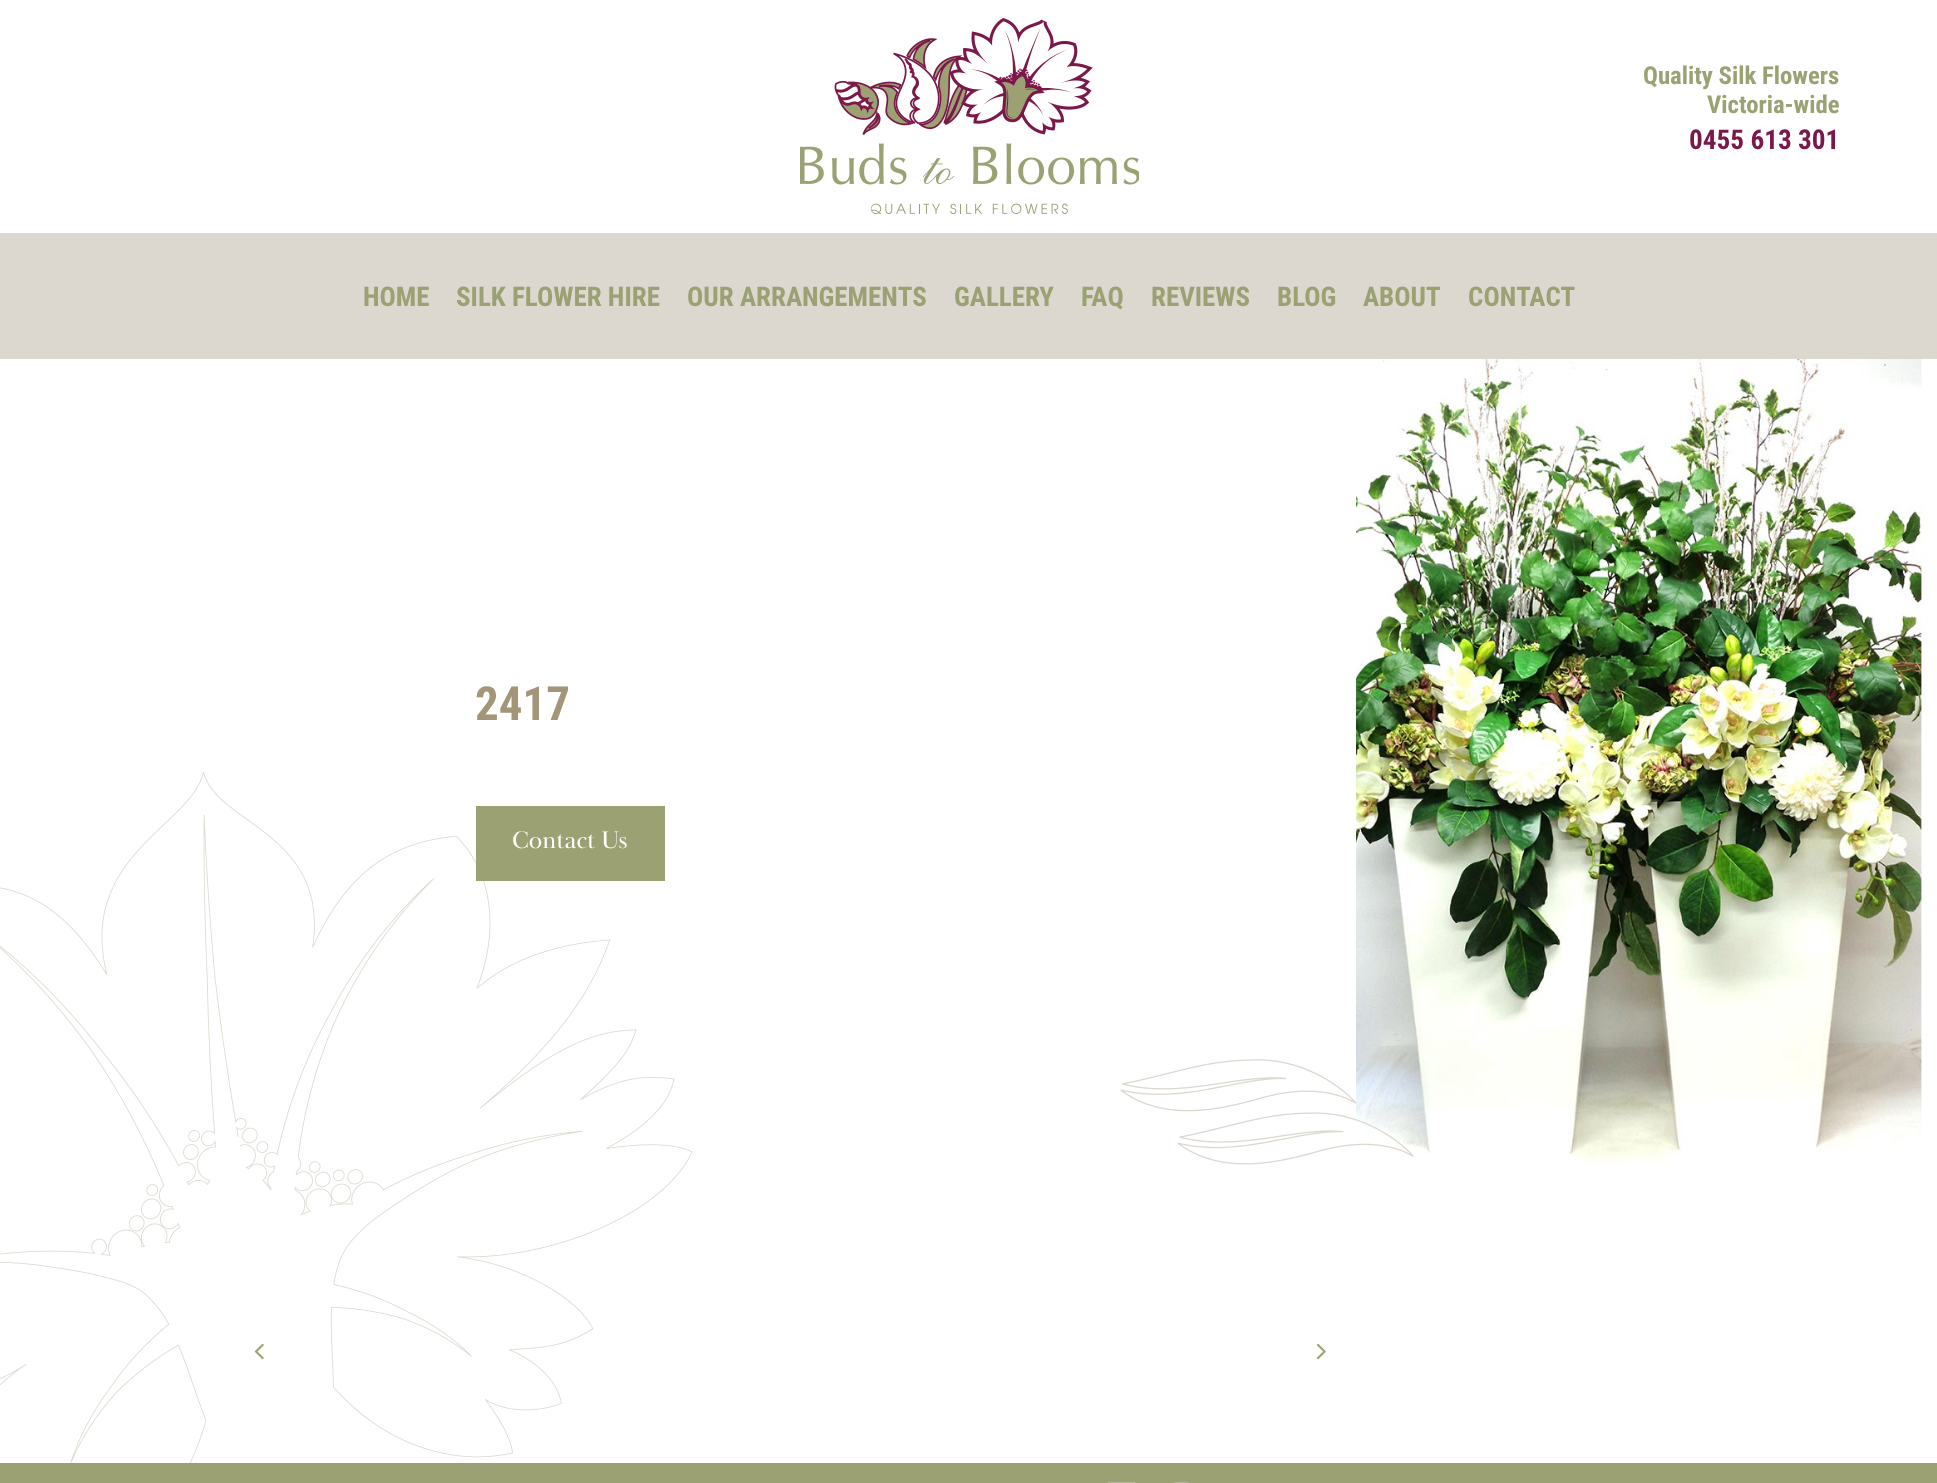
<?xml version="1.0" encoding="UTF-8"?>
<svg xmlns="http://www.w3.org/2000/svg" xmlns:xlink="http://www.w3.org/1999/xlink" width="1937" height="1483">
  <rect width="100%" height="100%" fill="#ffffff" />
  <image x="800" y="18" width="339" height="196" xlink:href="image1.png" />
  <rect y="233" width="1937" height="126" fill="#dcd8cf" />
  <image x="0" y="772" width="693" height="691" xlink:href="image4.png" />
  <rect x="476" y="806" width="189" height="75" fill="#9ca174" />
  <image x="1356" y="359" width="572" height="806" xlink:href="image3.png" />
  <image x="1120" y="1059" width="294" height="106" xlink:href="image2.png" />
  <image x="254" y="1343" width="10" height="17" xlink:href="image5.png" />
  <image x="1316" y="1343" width="10" height="17" xlink:href="image6.png" />
  <rect y="1463" width="1937" height="20" fill="#9ca174" />
  <image x="1107" y="1482" width="29" height="1" xlink:href="image7.png" />
  <image x="1173" y="1482" width="17" height="1" xlink:href="image8.png" />
  <text x="1643" y="84" style="font-family: Roboto Condensed; font-size: 24.75px; font-weight: bold; fill: #9ca174">Quality Silk Flowers</text>
  <text x="1707" y="113" style="font-family: Roboto Condensed; font-size: 24.75px; font-weight: bold; fill: #9ca174">Victoria-wide</text>
  <text x="1689" y="149" style="font-family: Roboto Condensed; font-size: 27.25px; font-weight: bold; fill: #7c174a">0455 613 301</text>
  <text x="363" y="306" style="font-family: Roboto Condensed; font-size: 27px; font-weight: bold; fill: #9ca174">HOME</text>
  <text x="456" y="306" style="font-family: Roboto Condensed; font-size: 27px; font-weight: bold; fill: #9ca174">SILK FLOWER HIRE</text>
  <text x="687" y="306" style="font-family: Roboto Condensed; font-size: 27px; font-weight: bold; fill: #9ca174">OUR ARRANGEMENTS</text>
  <text x="954" y="306" style="font-family: Roboto Condensed; font-size: 27px; font-weight: bold; fill: #9ca174">GALLERY</text>
  <text x="1081" y="306" style="font-family: Roboto Condensed; font-size: 27px; font-weight: bold; fill: #9ca174">FAQ</text>
  <text x="1151" y="306" style="font-family: Roboto Condensed; font-size: 27px; font-weight: bold; fill: #9ca174">REVIEWS</text>
  <text x="1277" y="306" style="font-family: Roboto Condensed; font-size: 27px; font-weight: bold; fill: #9ca174">BLOG</text>
  <text x="1363" y="306" style="font-family: Roboto Condensed; font-size: 27px; font-weight: bold; fill: #9ca174">ABOUT</text>
  <text x="1468" y="306" style="font-family: Roboto Condensed; font-size: 27px; font-weight: bold; fill: #9ca174">CONTACT</text>
  <text x="475" y="720" style="font-family: Roboto Condensed; font-size: 47px; font-weight: bold; fill: #a29578">2417</text>
  <text x="512" y="848" style="font-family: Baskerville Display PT; font-size: 24.75px; fill: #ffffff">Contact Us</text>
</svg>
